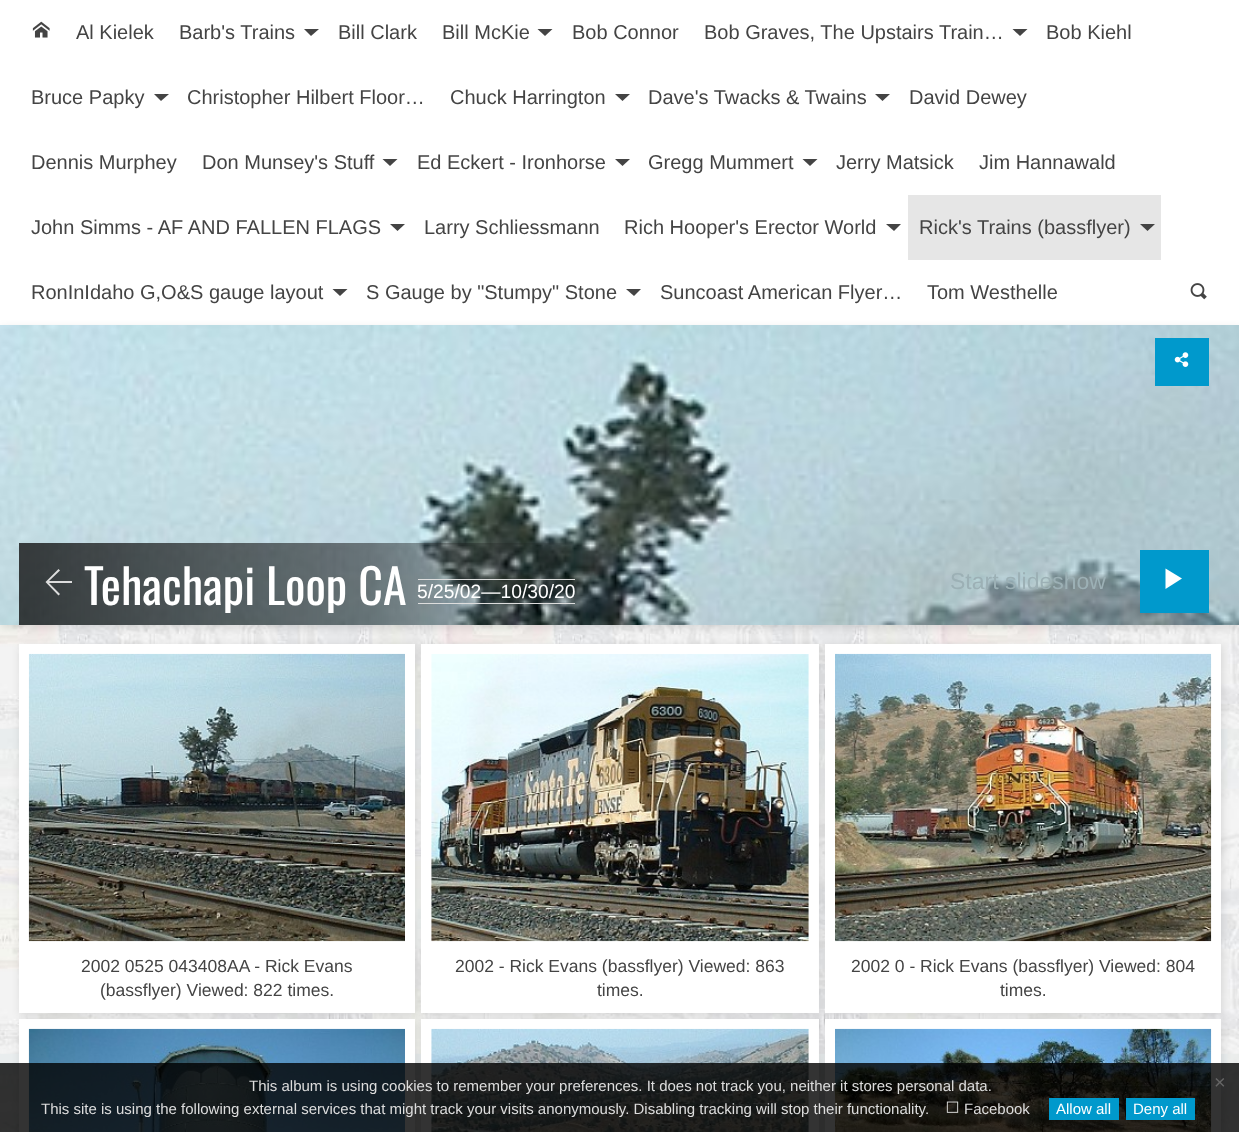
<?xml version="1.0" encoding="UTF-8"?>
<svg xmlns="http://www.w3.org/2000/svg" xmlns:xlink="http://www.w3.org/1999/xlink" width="1239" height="1132">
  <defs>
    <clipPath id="clip1"><rect x="84" y="555" width="491" height="58" /></clipPath>
  </defs>
  <rect width="100%" height="100%" fill="#ffffff" />
  <image x="0" y="625" width="1239" height="507" xlink:href="image1.png" />
  <image x="32" y="21" width="18" height="17" xlink:href="image2.png" />
  <path d="M 304 29 h 15 l -8 7 z" fill="#444444" />
  <path d="M 537.5 29 h 15 l -7.5 7 z" fill="#444444" />
  <path d="M 1012.5 29 h 15 l -7.5 7 z" fill="#444444" />
  <path d="M 154 94 h 15 l -8 7 z" fill="#444444" />
  <path d="M 615 94 h 15 l -7.5 7 z" fill="#444444" />
  <path d="M 875 94 h 15 l -7.5 7 z" fill="#444444" />
  <path d="M 382.5 159 h 15 l -7.5 7 z" fill="#444444" />
  <path d="M 615 159 h 15 l -7.5 7 z" fill="#444444" />
  <path d="M 802.5 159 h 15 l -7.5 7 z" fill="#444444" />
  <path d="M 390 224 h 15 l -7.5 7 z" fill="#444444" />
  <path d="M 886 224 h 15 l -7 7 z" fill="#444444" />
  <rect x="908" y="195" width="253" height="65" fill="#e6e6e6" />
  <path d="M 1140 224 h 15 l -7.5 7 z" fill="#444444" />
  <path d="M 332.5 289 h 15 l -7.5 7 z" fill="#444444" />
  <path d="M 626 289 h 15 l -7 7 z" fill="#444444" />
  <image x="1190" y="283" width="17" height="17" xlink:href="image3.png" />
  <rect x="1" y="328" width="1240" height="300" fill="#000000" fill-opacity="0.11" filter="blur(4px)" />
  <image x="0" y="325" width="1239" height="300" xlink:href="image4.png" />
  <rect x="1155" y="338" width="54" height="48" fill="#0099cc" />
  <image x="1174" y="352" width="15" height="15" xlink:href="image5.png" />
  <path d="M 45.5 582 l 13 -13 l 1.5 1.5 l -11 10.5 h 23 v 2 h -23 l 11 11 l -1.5 1.5 z" fill="#dddddd" />
  <rect x="418" y="579" width="157" height="1" fill="#dddddd" />
  <rect x="418" y="603" width="157" height="1" fill="#dddddd" />
  <rect x="1140" y="550" width="69" height="63" fill="#0099cc" />
  <path d="M 1182 578.5 l -16.5 10.5 v -20.5 z" fill="#ffffff" />
  <rect x="20" y="646" width="396" height="369" fill="#000000" fill-opacity="0.11" filter="blur(4px)" />
  <rect x="19" y="644" width="396" height="369" fill="#ffffff" />
  <image x="28" y="653" width="377" height="289" xlink:href="image6.png" />
  <rect x="423" y="646" width="397" height="369" fill="#000000" fill-opacity="0.11" filter="blur(4px)" />
  <rect x="421" y="644" width="398" height="369" fill="#ffffff" />
  <image x="431" y="654" width="378" height="288" xlink:href="image7.png" />
  <rect x="826" y="646" width="397" height="369" fill="#000000" fill-opacity="0.11" filter="blur(4px)" />
  <rect x="825" y="644" width="396" height="369" fill="#ffffff" />
  <image x="835" y="653" width="377" height="289" xlink:href="image8.png" />
  <rect x="20" y="1021" width="396" height="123" fill="#000000" fill-opacity="0.11" filter="blur(4px)" />
  <rect x="19" y="1019" width="396" height="113" fill="#ffffff" />
  <image x="28" y="1028" width="377" height="104" xlink:href="image9.png" />
  <rect x="423" y="1021" width="397" height="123" fill="#000000" fill-opacity="0.11" filter="blur(4px)" />
  <rect x="421" y="1019" width="398" height="113" fill="#ffffff" />
  <image x="431" y="1028" width="378" height="104" xlink:href="image10.png" />
  <rect x="826" y="1021" width="397" height="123" fill="#000000" fill-opacity="0.11" filter="blur(4px)" />
  <rect x="825" y="1019" width="396" height="113" fill="#ffffff" />
  <image x="835" y="1028" width="377" height="104" xlink:href="image11.png" />
  <rect y="1063" width="1239" height="69" fill="#000000" fill-opacity="0.8" />
  <image x="946" y="1101" width="13" height="12" xlink:href="image12.png" />
  <rect x="1049" y="1098" width="70" height="22" fill="#0099cc" />
  <rect x="1126" y="1098" width="69" height="22" fill="#0099cc" />
  <text x="76" y="39" style="font-family: Liberation Sans; font-size: 20px; fill: #444444">Al Kielek</text>
  <text x="179" y="39" style="font-family: Liberation Sans; font-size: 20px; fill: #444444">Barb's Trains</text>
  <text x="338" y="39" style="font-family: Liberation Sans; font-size: 20px; fill: #444444">Bill Clark</text>
  <text x="442" y="39" style="font-family: Liberation Sans; font-size: 20px; fill: #444444">Bill McKie</text>
  <text x="572" y="39" style="font-family: Liberation Sans; font-size: 20px; fill: #444444">Bob Connor</text>
  <text x="704" y="39" style="font-family: Liberation Sans; font-size: 20px; fill: #444444">Bob Graves, The Upstairs Train…</text>
  <text x="1046" y="39" style="font-family: Liberation Sans; font-size: 20px; fill: #444444">Bob Kiehl</text>
  <text x="31" y="104" style="font-family: Liberation Sans; font-size: 20px; fill: #444444">Bruce Papky</text>
  <text x="187" y="104" style="font-family: Liberation Sans; font-size: 20px; fill: #444444">Christopher Hilbert Floor…</text>
  <text x="450" y="104" style="font-family: Liberation Sans; font-size: 20px; fill: #444444">Chuck Harrington</text>
  <text x="648" y="104" style="font-family: Liberation Sans; font-size: 20px; fill: #444444">Dave's Twacks &amp; Twains</text>
  <text x="909" y="104" style="font-family: Liberation Sans; font-size: 20px; fill: #444444">David Dewey</text>
  <text x="31" y="169" style="font-family: Liberation Sans; font-size: 20px; fill: #444444">Dennis Murphey</text>
  <text x="202" y="169" style="font-family: Liberation Sans; font-size: 20px; fill: #444444">Don Munsey's Stuff</text>
  <text x="417" y="169" style="font-family: Liberation Sans; font-size: 20px; fill: #444444">Ed Eckert - Ironhorse</text>
  <text x="648" y="169" style="font-family: Liberation Sans; font-size: 20px; fill: #444444">Gregg Mummert</text>
  <text x="836" y="169" style="font-family: Liberation Sans; font-size: 20px; fill: #444444">Jerry Matsick</text>
  <text x="979" y="169" style="font-family: Liberation Sans; font-size: 20px; fill: #444444">Jim Hannawald</text>
  <text x="31" y="234" style="font-family: Liberation Sans; font-size: 20px; fill: #444444">John Simms - AF AND FALLEN FLAGS</text>
  <text x="424" y="234" style="font-family: Liberation Sans; font-size: 20px; fill: #444444">Larry Schliessmann</text>
  <text x="624" y="234" style="font-family: Liberation Sans; font-size: 20px; fill: #444444">Rich Hooper's Erector World</text>
  <text x="919" y="234" style="font-family: Liberation Sans; font-size: 20px; fill: #444444">Rick's Trains (bassflyer)</text>
  <text x="31" y="299" style="font-family: Liberation Sans; font-size: 20px; fill: #444444">RonInIdaho G,O&amp;S gauge layout</text>
  <text x="366" y="299" style="font-family: Liberation Sans; font-size: 20px; fill: #444444">S Gauge by "Stumpy" Stone</text>
  <text x="660" y="299" style="font-family: Liberation Sans; font-size: 20px; fill: #444444">Suncoast American Flyer…</text>
  <text x="927" y="299" style="font-family: Liberation Sans; font-size: 20px; fill: #444444">Tom Westhelle</text>
  <g clip-path="url(#clip1)">
    <text x="84" y="605" style="font-family: Oswald; font-size: 48px; fill: #ffffff">Tehachapi Loop CA</text>
  </g>
  <text x="417" y="598" style="font-family: Liberation Sans; font-size: 19.25px; fill: #ffffff">5/25/02—10/30/20</text>
  <text x="950" y="589" style="font-family: Liberation Sans; font-size: 23px; fill: #9cb0b5">Start slideshow</text>
  <text x="81" y="972" style="font-family: Liberation Sans; font-size: 17.5px; fill: #444444">2002 0525 043408AA - Rick Evans</text>
  <text x="100" y="996" style="font-family: Liberation Sans; font-size: 17.5px; fill: #444444">(bassflyer) Viewed: 822 times.</text>
  <text x="455" y="972" style="font-family: Liberation Sans; font-size: 17.5px; fill: #444444">2002 - Rick Evans (bassflyer) Viewed: 863</text>
  <text x="597" y="996" style="font-family: Liberation Sans; font-size: 17.5px; fill: #444444">times.</text>
  <text x="851" y="972" style="font-family: Liberation Sans; font-size: 17.5px; fill: #444444">2002 0 - Rick Evans (bassflyer) Viewed: 804</text>
  <text x="1000" y="996" style="font-family: Liberation Sans; font-size: 17.5px; fill: #444444">times.</text>
  <text x="249" y="1091" style="font-family: Liberation Sans; font-size: 15px; fill: #dddddd">This album is using cookies to remember your preferences. It does not track you, neither it stores personal data.</text>
  <text x="1214" y="1089" style="font-family: Liberation Sans; font-size: 20px; fill: #666666">×</text>
  <text x="41" y="1114" style="font-family: Liberation Sans; font-size: 15px; fill: #dddddd">This site is using the following external services that might track your visits anonymously. Disabling tracking will stop their functionality.</text>
  <text x="964" y="1114" style="font-family: Liberation Sans; font-size: 15px; fill: #dddddd">Facebook</text>
  <text x="1056" y="1114" style="font-family: Liberation Sans; font-size: 15px; fill: #ffffff">Allow all</text>
  <text x="1133" y="1114" style="font-family: Liberation Sans; font-size: 15px; fill: #ffffff">Deny all</text>
</svg>
